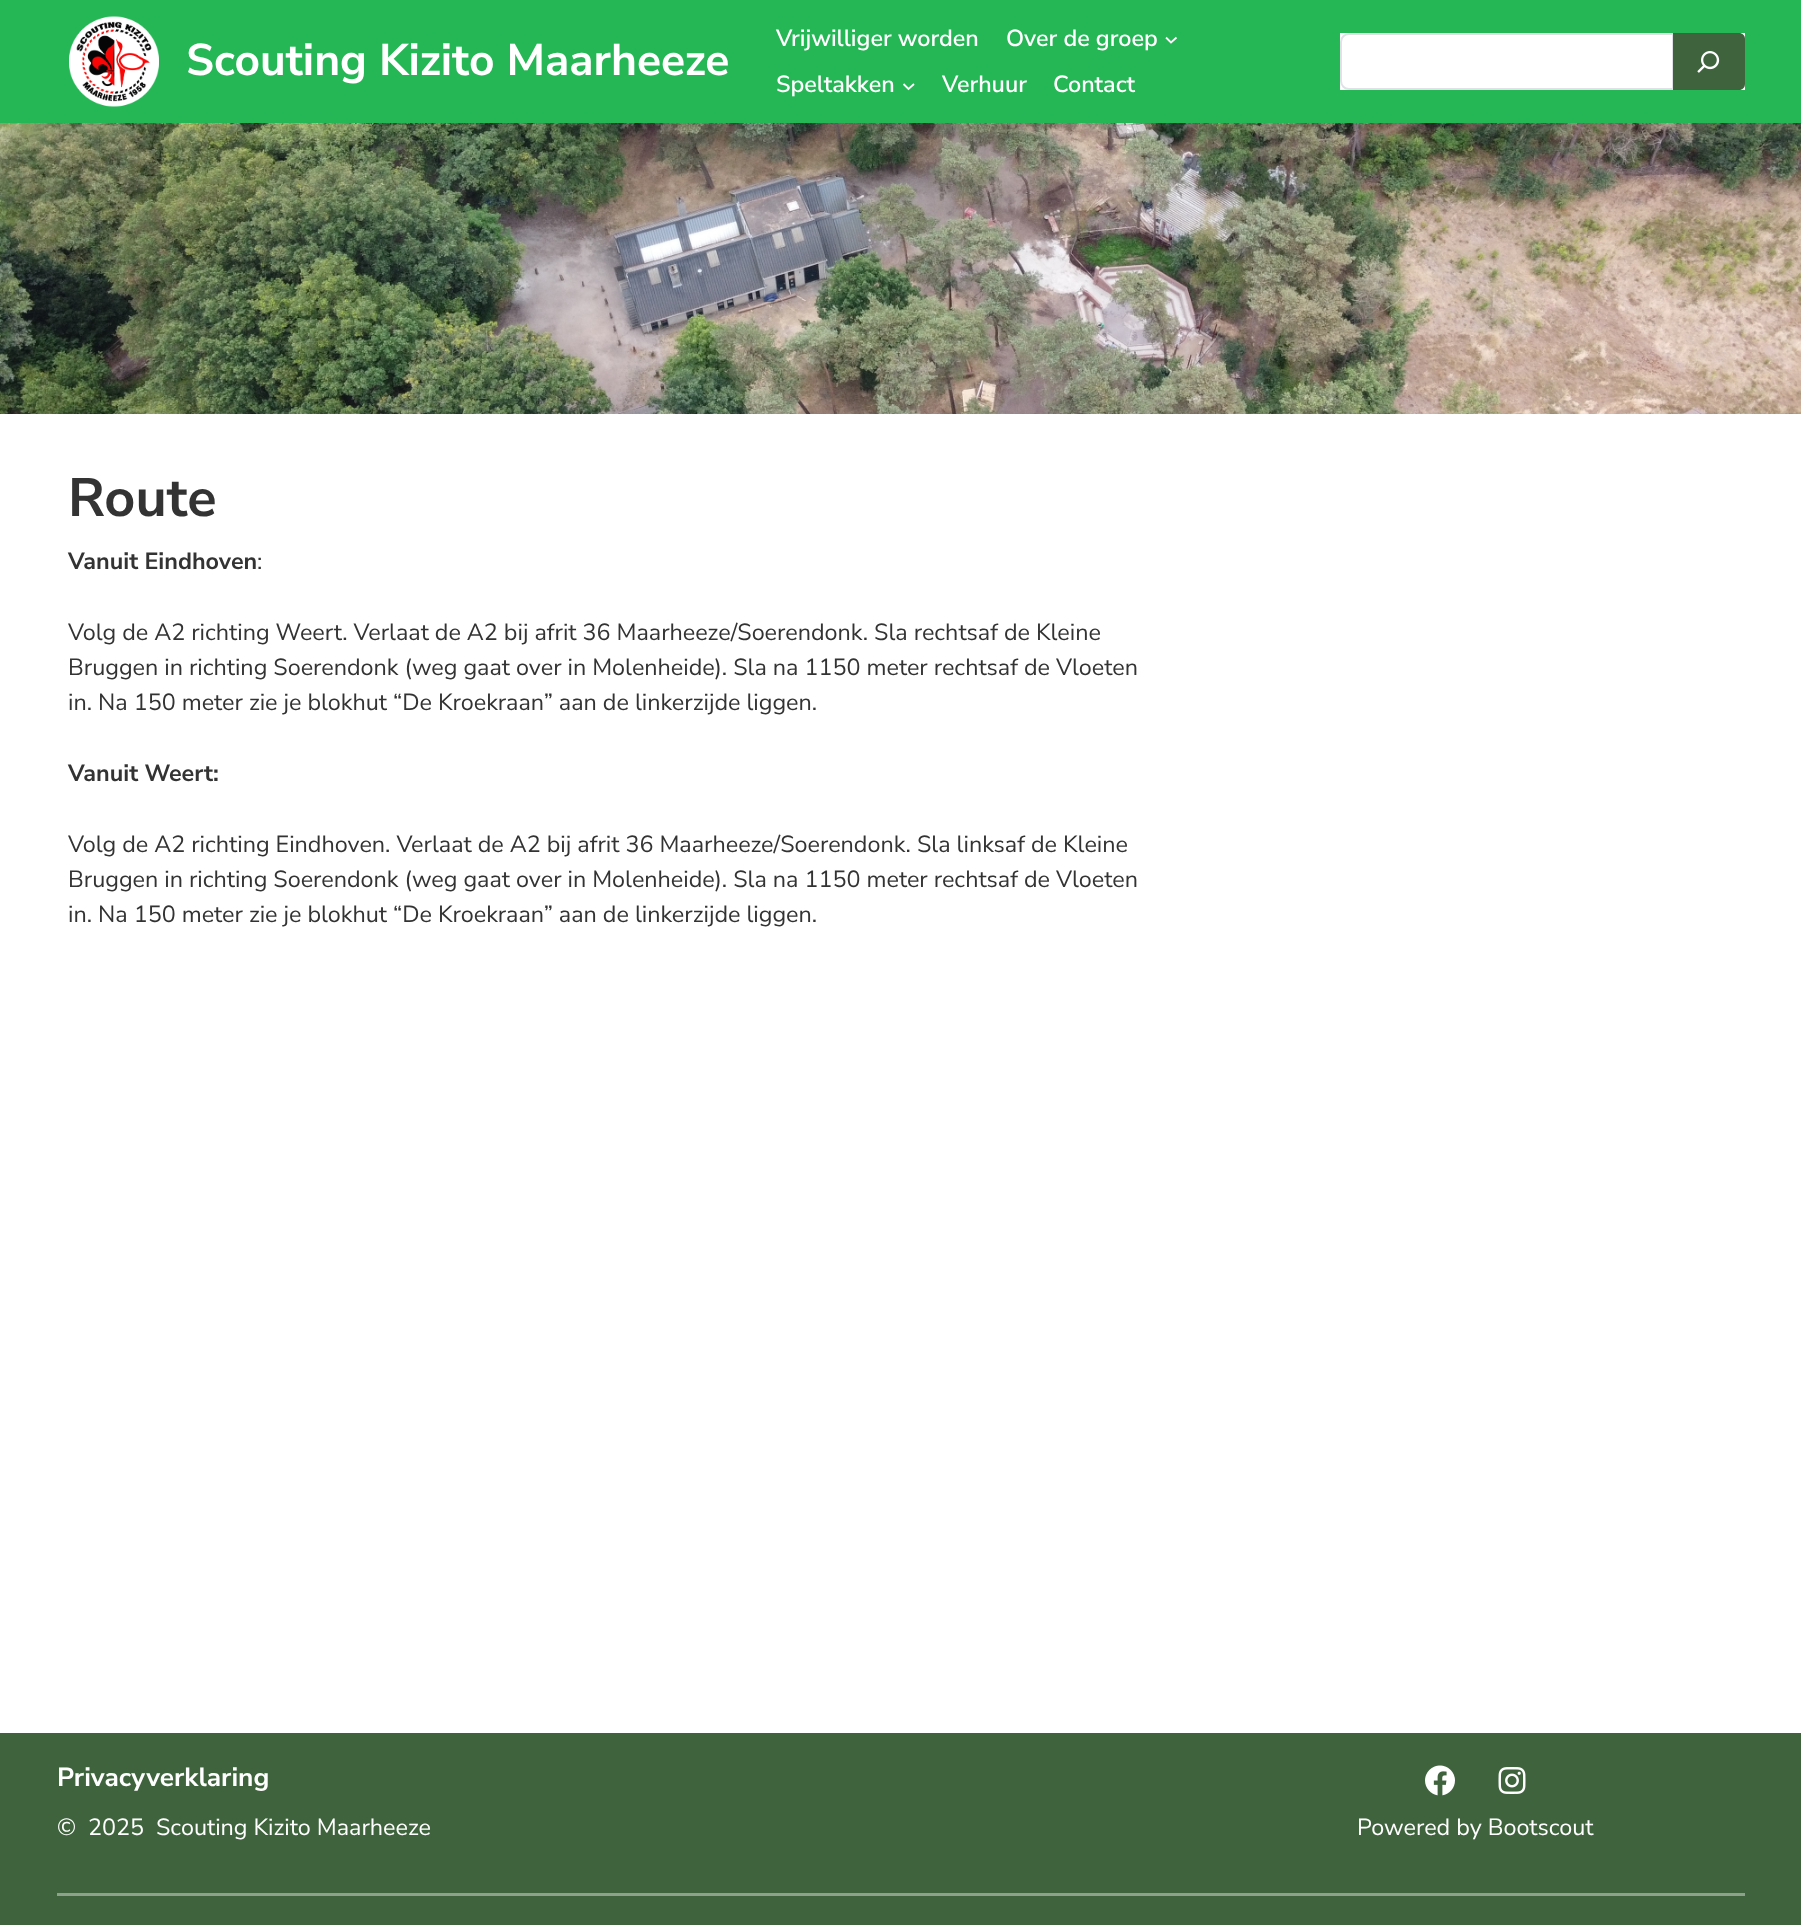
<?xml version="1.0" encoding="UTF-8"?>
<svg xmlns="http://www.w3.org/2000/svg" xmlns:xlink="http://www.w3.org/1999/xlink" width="1801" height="1925">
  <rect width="100%" height="100%" fill="#ffffff" />
  <rect width="1801" height="123" fill="#25b755" />
  <image x="69" y="16" width="90" height="91" xlink:href="image1.png" />
  <path d="M 1166 37.5 l 5 5 l 5.5 -5" fill="none" stroke="#ffffff" stroke-width="1.8" />
  <path d="M 903.5 84 l 5 5 l 5.5 -5" fill="none" stroke="#ffffff" stroke-width="1.8" />
  <rect x="1340" y="33" width="405" height="57" fill="#ffffff" />
  <path d="M 1349 34 h 324 v 55 h -324 c -4.5 0 -8 -3.5 -8 -8 v -39 c 0 -4.5 3.5 -8 8 -8 z" fill="none" stroke="#dee2e6" stroke-width="2" />
  <path d="M 1673 33 h 66 c 3.5 0 6 2.5 6 6 v 45 c 0 3.5 -2.5 6 -6 6 h -66 z" fill="#3f643d" />
  <image x="1697" y="51" width="23" height="22" xlink:href="image2.png" />
  <image x="0" y="123" width="1801" height="291" xlink:href="image3.png" />
  <rect y="1733" width="1801" height="192" fill="#3f643d" />
  <image x="1425" y="1765" width="30" height="31" xlink:href="image4.png" />
  <image x="1498" y="1767" width="28" height="27" xlink:href="image5.png" />
  <rect x="57" y="1893" width="1688" height="3" fill="#8ca28b" />
  <text x="186" y="75" style="font-family: Nunito Sans; font-size: 44.4px; font-weight: bold; fill: #ffffff">Scouting Kizito Maarheeze</text>
  <text x="776" y="46" style="font-family: Nunito Sans; font-size: 23.35px; font-weight: 600; fill: #ffffff">Vrijwilliger worden</text>
  <text x="1006" y="46" style="font-family: Nunito Sans; font-size: 23.35px; font-weight: 600; fill: #ffffff">Over de groep</text>
  <text x="776" y="92" style="font-family: Nunito Sans; font-size: 23.35px; font-weight: 600; fill: #ffffff">Speltakken</text>
  <text x="942" y="92" style="font-family: Nunito Sans; font-size: 23.35px; font-weight: 600; fill: #ffffff">Verhuur</text>
  <text x="1053" y="92" style="font-family: Nunito Sans; font-size: 23.35px; font-weight: 600; fill: #ffffff">Contact</text>
  <text x="68" y="516" style="font-family: Nunito Sans; font-size: 54px; font-weight: bold; fill: #333333">Route</text>
  <text x="68" y="569" style="font-family: Nunito Sans; font-size: 23.35px; font-weight: bold; fill: #333333">Vanuit Eindhoven</text>
  <text x="257" y="569" style="font-family: Nunito Sans; font-size: 23.35px; fill: #333333">:</text>
  <text x="68" y="640" style="font-family: Nunito Sans; font-size: 23.35px; fill: #333333">Volg de A2 richting Weert. Verlaat de A2 bij afrit 36 Maarheeze/Soerendonk. Sla rechtsaf de Kleine</text>
  <text x="68" y="675" style="font-family: Nunito Sans; font-size: 23.35px; fill: #333333">Bruggen in richting Soerendonk (weg gaat over in Molenheide). Sla na 1150 meter rechtsaf de Vloeten</text>
  <text x="68" y="710" style="font-family: Nunito Sans; font-size: 23.35px; fill: #333333">in. Na 150 meter zie je blokhut “De Kroekraan” aan de linkerzijde liggen.</text>
  <text x="68" y="781" style="font-family: Nunito Sans; font-size: 23.35px; font-weight: bold; fill: #333333">Vanuit Weert:</text>
  <text x="68" y="852" style="font-family: Nunito Sans; font-size: 23.35px; fill: #333333">Volg de A2 richting Eindhoven. Verlaat de A2 bij afrit 36 Maarheeze/Soerendonk. Sla linksaf de Kleine</text>
  <text x="68" y="887" style="font-family: Nunito Sans; font-size: 23.35px; fill: #333333">Bruggen in richting Soerendonk (weg gaat over in Molenheide). Sla na 1150 meter rechtsaf de Vloeten</text>
  <text x="68" y="922" style="font-family: Nunito Sans; font-size: 23.35px; fill: #333333">in. Na 150 meter zie je blokhut “De Kroekraan” aan de linkerzijde liggen.</text>
  <text x="57" y="1786" style="font-family: Nunito Sans; font-size: 26.25px; font-weight: bold; fill: #ffffff">Privacyverklaring</text>
  <text x="57" y="1835" style="font-family: Nunito Sans; font-size: 23.35px; fill: #ffffff">©</text>
  <text x="88" y="1835" style="font-family: Nunito Sans; font-size: 23.35px; fill: #ffffff">2025</text>
  <text x="156" y="1835" style="font-family: Nunito Sans; font-size: 23.35px; fill: #ffffff">Scouting Kizito Maarheeze</text>
  <text x="1357" y="1835" style="font-family: Nunito Sans; font-size: 23.35px; fill: #ffffff">Powered by Bootscout</text>
</svg>
